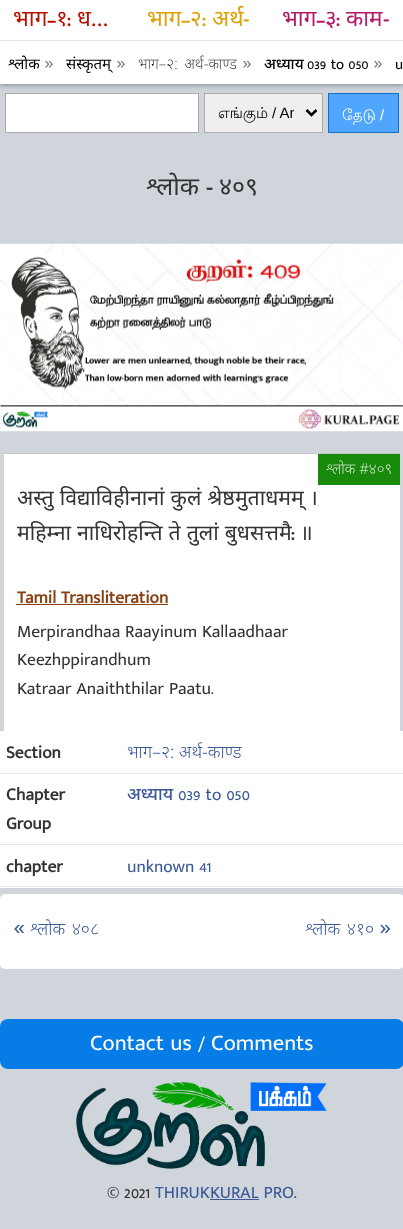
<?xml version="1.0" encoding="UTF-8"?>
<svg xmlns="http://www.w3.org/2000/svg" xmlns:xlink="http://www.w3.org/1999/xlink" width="403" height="1229">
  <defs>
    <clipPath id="clip1"><rect x="218" y="103" width="76" height="20" /></clipPath>
  </defs>
  <rect width="100%" height="100%" fill="#cfd5da" />
  <rect x="5.5" y="93.5" width="193" height="39" fill="#ffffff" stroke="#b1aaaa" />
  <rect x="204.5" y="93.5" width="118" height="39" fill="#efefef" stroke="#b1aaaa" />
  <rect x="328.5" y="93.5" width="70" height="39" fill="#50a5ff" stroke="#156cc9" />
  <rect width="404" height="84" fill="#000000" fill-opacity="0.5" filter="blur(3px)" />
  <rect width="403" height="84" fill="#ffffff" />
  <rect y="40" width="403" height="1" fill="#e6e6e6" />
  <path d="M 306.5 110 l 5 5 l 5 -5" fill="none" stroke="#000000" stroke-width="2.5" />
  <image x="0" y="243" width="403" height="189" xlink:href="image1.png" />
  <rect x="4" y="454" width="396" height="277" fill="#ffffff" />
  <rect x="4" y="453" width="396" height="1" fill="#c8c6c6" />
  <rect x="318" y="454" width="82" height="31" fill="#17890b" />
  <rect x="16" y="604" width="152" height="1" fill="#894114" />
  <rect y="731" width="403" height="157" fill="#ffffff" />
  <rect y="773" width="403" height="1" fill="#e7e7e7" />
  <rect y="844" width="403" height="1" fill="#e7e7e7" />
  <rect y="886" width="403" height="1" fill="#e7e7e7" />
  <rect y="894" width="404" height="75" rx="5" fill="#ffffff" />
  <rect y="1019" width="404" height="50" rx="8" fill="#067de6" />
  <image x="76" y="1082" width="251" height="87" xlink:href="image2.png" />
  <rect x="210" y="1199" width="49" height="1" fill="#3b5998" />
  <text x="13" y="26" style="font-family: Noto Sans; font-size: 22.5px; fill: #b71100">भाग</text>
  <text x="47" y="26" style="font-family: Mukta Malar; font-size: 22.5px; font-weight: bold; fill: #b71100">–</text>
  <text x="56" y="26" style="font-family: Noto Sans; font-size: 22.5px; fill: #b71100">१</text>
  <text x="67" y="26" style="font-family: Mukta Malar; font-size: 22.5px; font-weight: bold; fill: #b71100">:</text>
  <text x="77" y="26" style="font-family: Noto Sans; font-size: 22.5px; fill: #b71100">ध…</text>
  <text x="147" y="26" style="font-family: Noto Sans; font-size: 22.5px; fill: #dca20a">भाग</text>
  <text x="181" y="26" style="font-family: Mukta Malar; font-size: 22.5px; font-weight: bold; fill: #dca20a">–</text>
  <text x="190" y="26" style="font-family: Noto Sans; font-size: 22.5px; fill: #dca20a">२</text>
  <text x="202" y="26" style="font-family: Mukta Malar; font-size: 22.5px; font-weight: bold; fill: #dca20a">:</text>
  <text x="212" y="26" style="font-family: Noto Sans; font-size: 22.5px; fill: #dca20a">अर्थ</text>
  <text x="243" y="26" style="font-family: Mukta Malar; font-size: 22.5px; font-weight: bold; fill: #dca20a">-</text>
  <text x="282" y="26" style="font-family: Noto Sans; font-size: 22.5px; fill: #b21868">भाग</text>
  <text x="316" y="26" style="font-family: Mukta Malar; font-size: 22.5px; font-weight: bold; fill: #b21868">–</text>
  <text x="325" y="26" style="font-family: Noto Sans; font-size: 22.5px; fill: #b21868">३</text>
  <text x="336" y="26" style="font-family: Mukta Malar; font-size: 22.5px; font-weight: bold; fill: #b21868">:</text>
  <text x="346" y="26" style="font-family: Noto Sans; font-size: 22.5px; fill: #b21868">काम</text>
  <text x="383" y="26" style="font-family: Mukta Malar; font-size: 22.5px; font-weight: bold; fill: #b21868">-</text>
  <text x="8" y="69" style="font-family: Noto Sans; font-size: 15px; fill: #000000">श्लोक</text>
  <text x="44" y="69" style="font-family: Mukta Malar; font-size: 20px; fill: #7e7979">»</text>
  <text x="66" y="69" style="font-family: Noto Sans; font-size: 15px; fill: #000000">संस्कृतम्</text>
  <text x="116" y="69" style="font-family: Mukta Malar; font-size: 20px; fill: #7e7979">»</text>
  <text x="138" y="69" word-spacing="3" style="font-family: Noto Sans; font-size: 15px; font-weight: 200; fill: #000000">भाग–२: अर्थ-काण्ड</text>
  <text x="242" y="69" style="font-family: Mukta Malar; font-size: 20px; fill: #7e7979">»</text>
  <text x="264" y="69" style="font-family: Noto Sans; font-size: 15px; font-weight: 500; fill: #000000">अध्याय</text>
  <text x="307" y="69" style="font-family: Mukta Malar; font-size: 15px; fill: #000000">039 to 050</text>
  <text x="373" y="69" style="font-family: Mukta Malar; font-size: 20px; fill: #7e7979">»</text>
  <text x="395" y="69" style="font-family: Mukta Malar; font-size: 15px; fill: #000000">u</text>
  <text x="218" y="118" style="font-family: Lohit Tamil; font-size: 15px; fill: #000000">எங்கும்</text>
  <g clip-path="url(#clip1)">
    <text x="272" y="118" style="font-family: Liberation Sans; font-size: 15px; fill: #000000">/ An</text>
  </g>
  <text x="342" y="120" style="font-family: Lohit Tamil; font-size: 15px; fill: #ffffff">தேடு</text>
  <text x="380" y="120" style="font-family: Liberation Sans; font-size: 15px; fill: #ffffff">/</text>
  <text x="146" y="195" style="font-family: Noto Sans; font-size: 25px; fill: #333333">श्लोक</text>
  <text x="206" y="195" style="font-family: Mukta Malar; font-size: 25px; font-weight: bold; fill: #333333">-</text>
  <text x="219" y="195" style="font-family: Noto Sans; font-size: 25px; fill: #333333">४०९</text>
  <text x="326" y="474" style="font-family: Noto Sans; font-size: 15px; font-weight: 200; fill: #ffffff">श्लोक #४०९</text>
  <text x="17" y="505" word-spacing="0.5" style="font-family: Noto Sans; font-size: 21.25px; fill: #333333">अस्तु विद्याविहीनानां कुलं श्रेष्ठमुताधमम् ।</text>
  <text x="17" y="540" word-spacing="0.5" style="font-family: Noto Sans; font-size: 21.25px; fill: #333333">महिम्ना नाधिरोहन्ति ते तुलां बुधसत्तमै</text>
  <text x="291" y="540" style="font-family: Mukta Malar; font-size: 21.25px; font-weight: bold; fill: #333333">:</text>
  <text x="300" y="540" style="font-family: Noto Sans; font-size: 21.25px; fill: #333333">॥</text>
  <text x="17" y="603" style="font-family: Mukta Malar; font-size: 17.5px; font-weight: bold; fill: #894114">Tamil Transliteration</text>
  <text x="17" y="637" style="font-family: Mukta Malar; font-size: 17.5px; fill: #333333">Merpirandhaa Raayinum Kallaadhaar</text>
  <text x="17" y="665" style="font-family: Mukta Malar; font-size: 17.5px; fill: #333333">Keezhppirandhum</text>
  <text x="17" y="694" style="font-family: Mukta Malar; font-size: 17.5px; fill: #333333">Katraar Anaiththilar Paatu.</text>
  <text x="6" y="758" style="font-family: Mukta Malar; font-size: 17.5px; font-weight: bold; fill: #333333">Section</text>
  <text x="127" y="758" style="font-family: Noto Sans; font-size: 17.5px; font-weight: 300; fill: #3b5998">भाग–२: अर्थ-काण्ड</text>
  <text x="6" y="800" style="font-family: Mukta Malar; font-size: 17.5px; font-weight: bold; fill: #333333">Chapter</text>
  <text x="6" y="829" style="font-family: Mukta Malar; font-size: 17.5px; font-weight: bold; fill: #333333">Group</text>
  <text x="127" y="800" style="font-family: Noto Sans; font-size: 17.5px; font-weight: 500; fill: #3b5998">अध्याय</text>
  <text x="178" y="800" style="font-family: Mukta Malar; font-size: 17.5px; fill: #3b5998">039 to 050</text>
  <text x="6" y="872" style="font-family: Mukta Malar; font-size: 17.5px; font-weight: bold; fill: #333333">chapter</text>
  <text x="127" y="872" style="font-family: Mukta Malar; font-size: 17.5px; fill: #3b5998">unknown 41</text>
  <text x="13" y="935" style="font-family: Mukta Malar; font-size: 25px; fill: #3b5998">«</text>
  <text x="30" y="935" word-spacing="2" style="font-family: Noto Sans; font-size: 17.5px; font-weight: 300; fill: #3b5998">श्लोक ४०८</text>
  <text x="305" y="935" word-spacing="2" style="font-family: Noto Sans; font-size: 17.5px; font-weight: 300; fill: #3b5998">श्लोक ४१०</text>
  <text x="379" y="935" style="font-family: Mukta Malar; font-size: 25px; fill: #3b5998">»</text>
  <text x="90" y="1050" style="font-family: Mukta Malar; font-size: 22.5px; fill: #ffffff">Contact us / Comments</text>
  <text x="107" y="1198" style="font-family: Mukta Malar; font-size: 17.5px; fill: #333333">© 2021</text>
  <text x="155" y="1198" style="font-family: Mukta Malar; font-size: 17.5px; fill: #3b5998">THIRUKKURAL PRO</text>
  <text x="294" y="1198" style="font-family: Mukta Malar; font-size: 17.5px; fill: #333333">.</text>
</svg>
